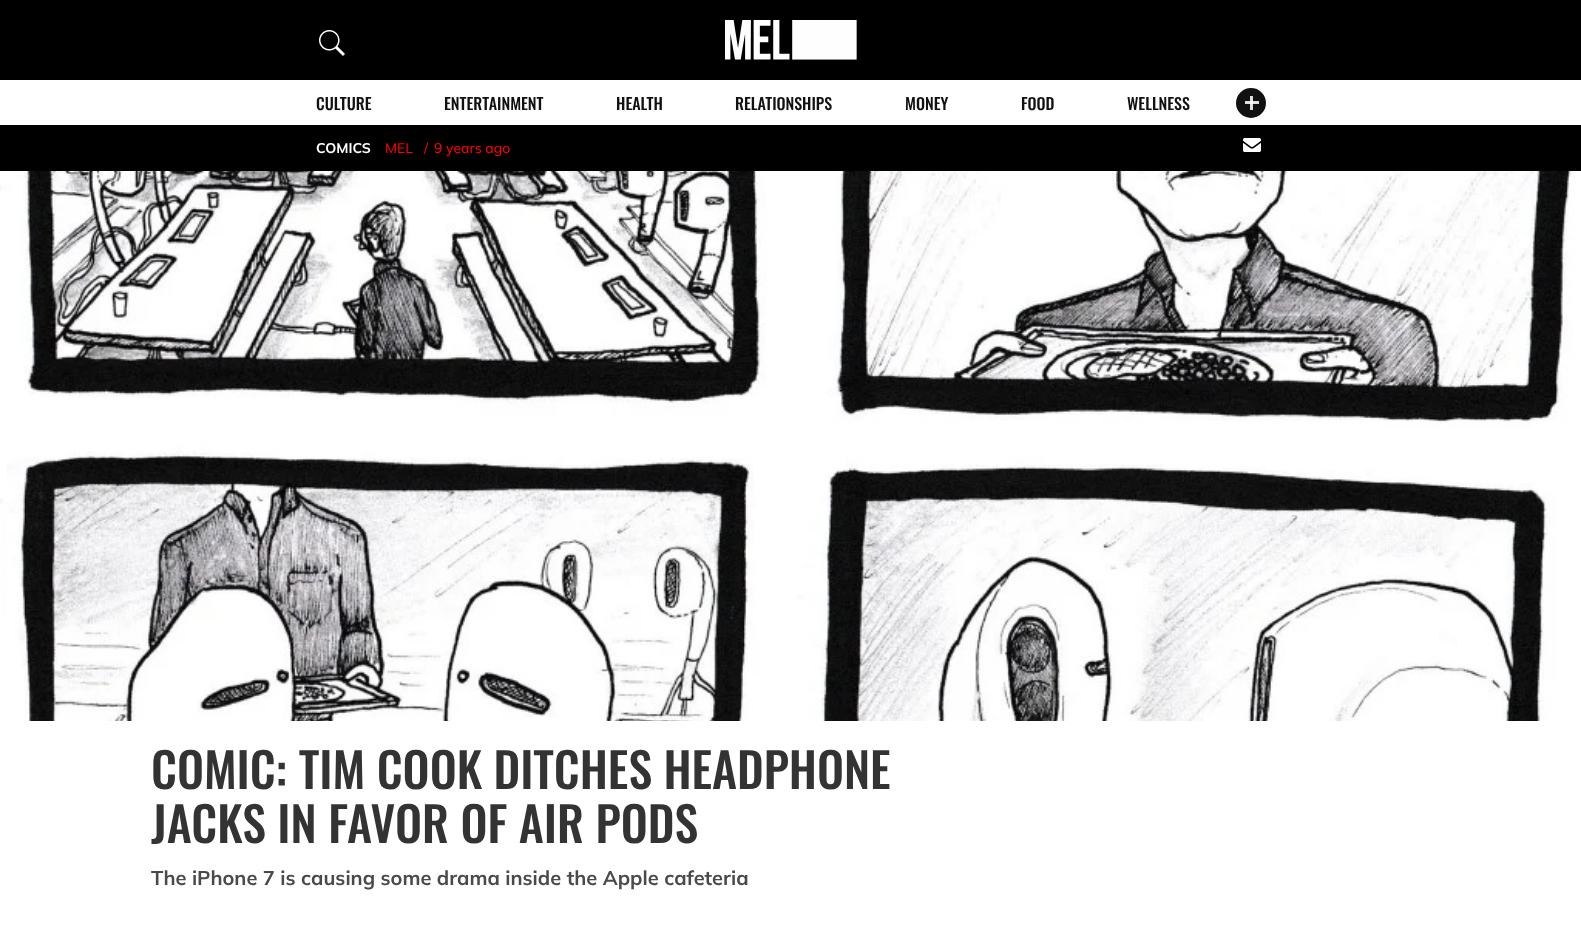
<?xml version="1.0" encoding="UTF-8"?>
<svg xmlns="http://www.w3.org/2000/svg" xmlns:xlink="http://www.w3.org/1999/xlink" width="1581" height="931">
  <rect width="100%" height="100%" fill="#ffffff" />
  <rect width="1581" height="80" fill="#000000" />
  <image x="319" y="30" width="26" height="26" xlink:href="image1.png" />
  <image x="725" y="20" width="132" height="40" xlink:href="image2.png" />
  <circle cx="1251" cy="103" r="15" fill="#111111" />
  <rect x="1245" y="101" width="14" height="3" fill="#e0e0e0" />
  <rect x="1250" y="96" width="3" height="14" fill="#dfdfdf" />
  <rect x="1250" y="101" width="3" height="3" fill="#fbfbfb" />
  <rect y="125" width="1581" height="46" fill="#000000" />
  <image x="1243" y="138" width="18" height="14" xlink:href="image3.png" />
  <image x="0" y="171" width="1575" height="550" xlink:href="image4.png" />
  <text x="316" y="110" style="font-family: Oswald; font-size: 16px; font-weight: 500; fill: #111111">CULTURE</text>
  <text x="444" y="110" style="font-family: Oswald; font-size: 16px; font-weight: 500; fill: #111111">ENTERTAINMENT</text>
  <text x="616" y="110" style="font-family: Oswald; font-size: 16px; font-weight: 500; fill: #111111">HEALTH</text>
  <text x="735" y="110" style="font-family: Oswald; font-size: 16px; font-weight: 500; fill: #111111">RELATIONSHIPS</text>
  <text x="905" y="110" style="font-family: Oswald; font-size: 16px; font-weight: 500; fill: #111111">MONEY</text>
  <text x="1021" y="110" style="font-family: Oswald; font-size: 16px; font-weight: 500; fill: #111111">FOOD</text>
  <text x="1127" y="110" style="font-family: Oswald; font-size: 16px; font-weight: 500; fill: #111111">WELLNESS</text>
  <text x="316" y="153" style="font-family: Mulish; font-size: 14px; font-weight: bold; fill: #ffffff">COMICS</text>
  <text x="385" y="153" style="font-family: Mulish; font-size: 14px; font-weight: 500; fill: #ff0000">MEL</text>
  <text x="424" y="153" style="font-family: Mulish; font-size: 14px; font-weight: 500; fill: #ff0000">/</text>
  <text x="434" y="153" style="font-family: Mulish; font-size: 14px; font-weight: 500; fill: #ff0000">9 years ago</text>
  <text x="151" y="789" style="font-family: Oswald; font-size: 48px; font-weight: 500; fill: #333333">COMIC: TIM COOK DITCHES HEADPHONE</text>
  <text x="151" y="843" style="font-family: Oswald; font-size: 48px; font-weight: 500; fill: #333333">JACKS IN FAVOR OF AIR PODS</text>
  <text x="151" y="885" style="font-family: Mulish; font-size: 20px; font-weight: bold; fill: #4a4a4a">The iPhone 7 is causing some drama inside the Apple cafeteria</text>
</svg>
